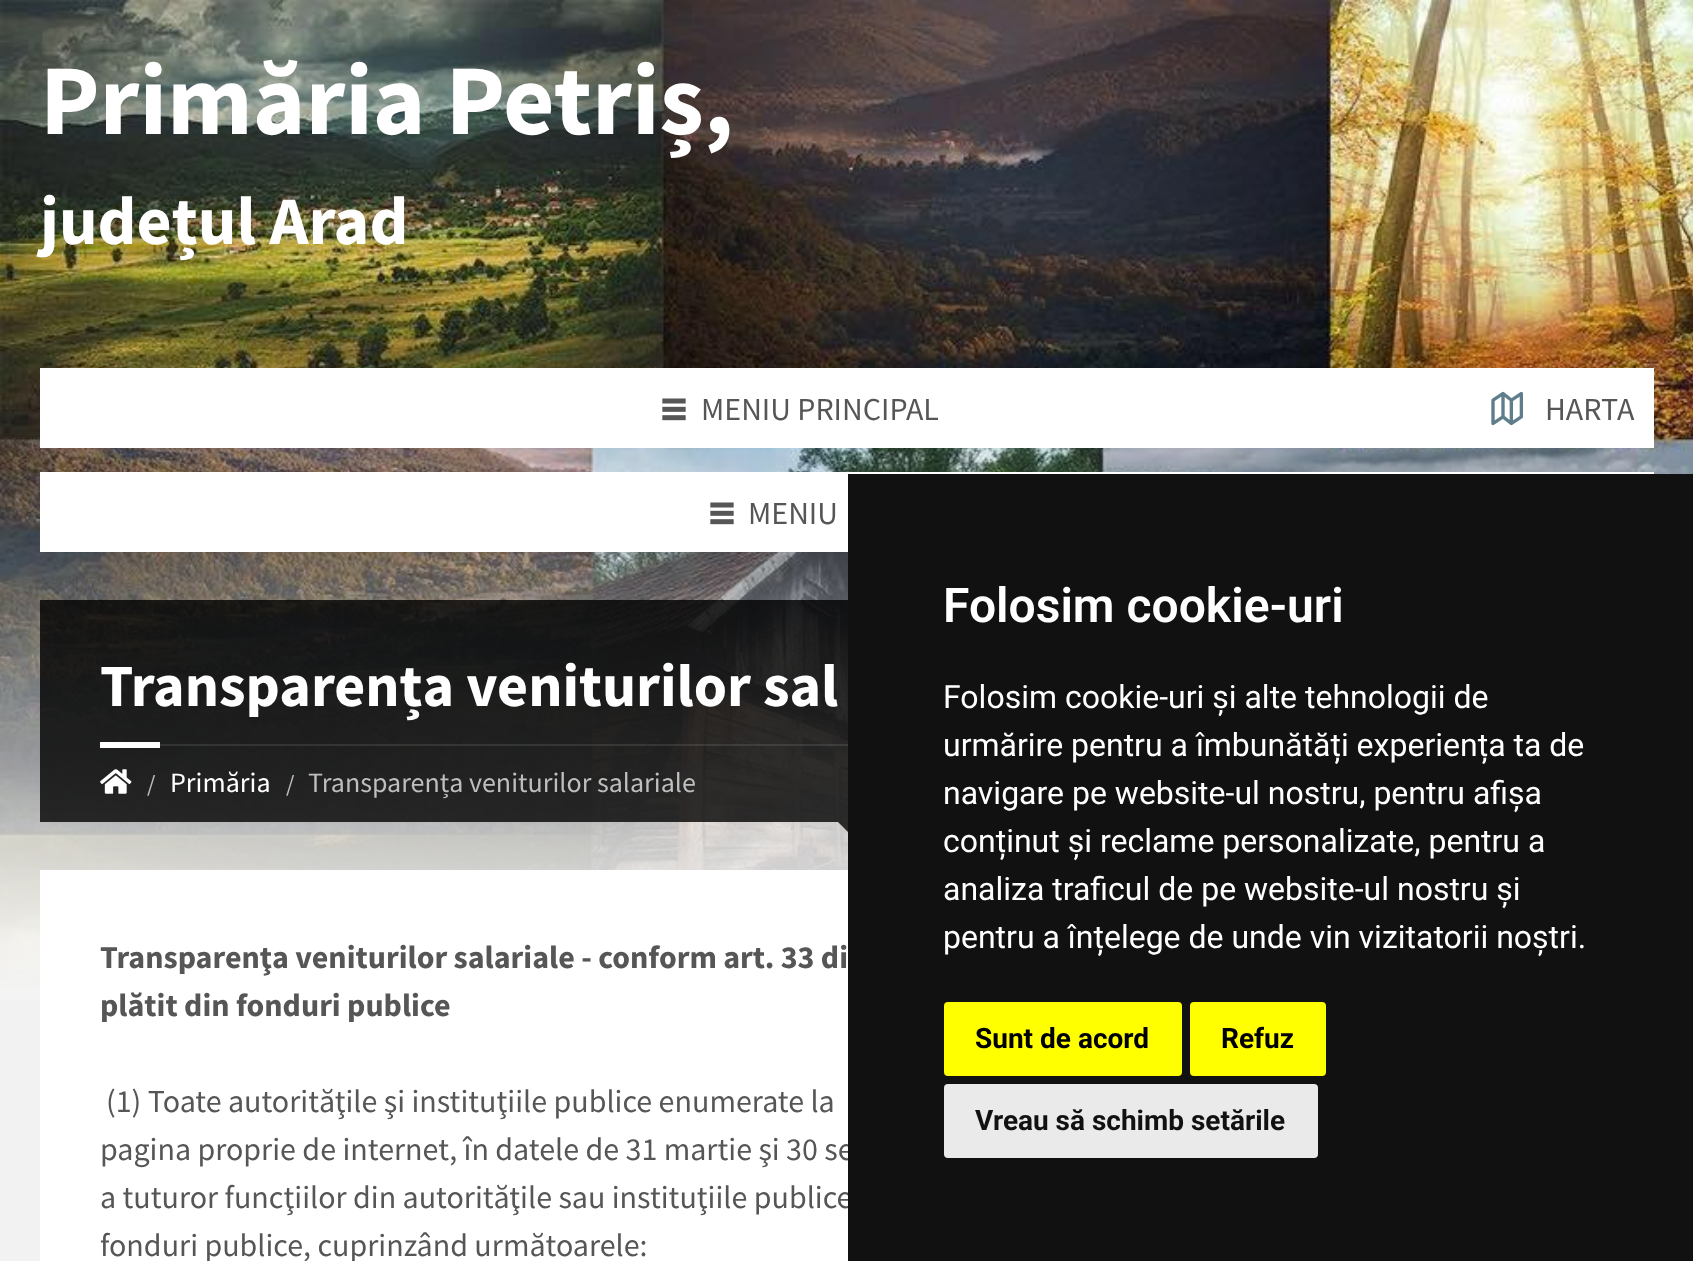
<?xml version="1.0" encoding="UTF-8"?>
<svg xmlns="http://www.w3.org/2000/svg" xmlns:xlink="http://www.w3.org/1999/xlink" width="1693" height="1261">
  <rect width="100%" height="100%" fill="#f2f2f2" />
  <image x="0" y="0" width="1693" height="988" xlink:href="image1.png" />
  <image x="0" y="437" width="1693" height="563" xlink:href="image2.png" />
  <rect x="40" y="368" width="1614" height="80" fill="#ffffff" />
  <image x="662" y="398" width="24" height="23" xlink:href="image3.png" />
  <image x="1491" y="391" width="32" height="35" xlink:href="image4.png" />
  <rect x="40" y="472" width="1614" height="80" fill="#ffffff" />
  <image x="710" y="502" width="24" height="23" xlink:href="image3.png" />
  <rect x="40" y="600" width="808" height="222" fill="#000000" fill-opacity="0.8" />
  <rect x="160" y="744" width="688" height="2" fill="#ffffff" fill-opacity="0.1" />
  <rect x="100" y="742" width="60" height="6" fill="#ffffff" />
  <image x="100" y="769" width="32" height="25" xlink:href="image5.png" />
  <path d="M 838 822 h 40 l -20 20 z" fill="#000000" fill-opacity="0.8" />
  <rect x="40" y="870" width="808" height="391" fill="#ffffff" />
  <text x="40" y="134" style="font-family: Source Sans Pro; font-size: 100px; font-weight: bold; fill: #ffffff">Primăria Petriș,</text>
  <text x="40" y="244" style="font-family: Source Sans Pro; font-size: 68px; font-weight: bold; fill: #ffffff">județul Arad</text>
  <text x="701" y="420" style="font-family: Source Sans Pro; font-size: 32px; fill: #565656">MENIU PRINCIPAL</text>
  <text x="1545" y="420" style="font-family: Source Sans Pro; font-size: 32px; fill: #565656">HARTA</text>
  <text x="748" y="524" style="font-family: Source Sans Pro; font-size: 32px; fill: #565656">MENIU</text>
  <text x="100" y="706" style="font-family: Source Sans Pro; font-size: 60px; font-weight: bold; fill: #ffffff">Transparența veniturilor sal</text>
  <text x="147" y="792" style="font-family: Source Sans Pro; font-size: 24px; fill: #bebebe">/</text>
  <text x="170" y="792" style="font-family: Source Sans Pro; font-size: 28px; fill: #ffffff">Primăria</text>
  <text x="286" y="792" style="font-family: Source Sans Pro; font-size: 24px; fill: #bebebe">/</text>
  <text x="308" y="792" style="font-family: Source Sans Pro; font-size: 28px; fill: #bebebe">Transparența veniturilor salariale</text>
  <text x="100" y="968" style="font-family: Source Sans Pro; font-size: 32px; font-weight: bold; fill: #565656">Transparenţa veniturilor salariale - conform art. 33 di</text>
  <text x="100" y="1016" style="font-family: Source Sans Pro; font-size: 32px; font-weight: bold; fill: #565656">plătit din fonduri publice</text>
  <text x="106" y="1112" style="font-family: Source Sans Pro; font-size: 32px; fill: #565656">(1) Toate autorităţile şi instituţiile publice enumerate la</text>
  <text x="100" y="1160" style="font-family: Source Sans Pro; font-size: 32px; fill: #565656">pagina proprie de internet, în datele de 31 martie şi 30 se</text>
  <text x="100" y="1208" style="font-family: Source Sans Pro; font-size: 32px; fill: #565656">a tuturor funcţiilor din autorităţile sau instituţiile publice</text>
  <text x="100" y="1256" style="font-family: Source Sans Pro; font-size: 32px; fill: #565656">fonduri publice, cuprinzând următoarele:</text>
  <rect x="848" y="474" width="845" height="787" fill="#111111" />
  <text x="943" y="622" style="font-family: Roboto; font-size: 48px; font-weight: 600; fill: #ffffff">Folosim cookie-uri</text>
  <text x="943" y="708" style="font-family: Roboto; font-size: 32px; fill: #ffffff">Folosim cookie-uri și alte tehnologii de</text>
  <text x="943" y="756" style="font-family: Roboto; font-size: 32px; fill: #ffffff">urmărire pentru a îmbunătăți experiența ta de</text>
  <text x="943" y="804" style="font-family: Roboto; font-size: 32px; fill: #ffffff">navigare pe website-ul nostru, pentru afișa</text>
  <text x="943" y="852" style="font-family: Roboto; font-size: 32px; fill: #ffffff">conținut și reclame personalizate, pentru a</text>
  <text x="943" y="900" style="font-family: Roboto; font-size: 32px; fill: #ffffff">analiza traficul de pe website-ul nostru și</text>
  <text x="943" y="948" style="font-family: Roboto; font-size: 32px; fill: #ffffff">pentru a înțelege de unde vin vizitatorii noștri.</text>
  <rect x="944" y="1002" width="238" height="74" rx="4" fill="#ffff00" />
  <text x="975" y="1048" style="font-family: Roboto; font-size: 28px; font-weight: bold; fill: #000000">Sunt de acord</text>
  <rect x="1190" y="1002" width="136" height="74" rx="4" fill="#ffff00" />
  <text x="1221" y="1048" style="font-family: Roboto; font-size: 28px; font-weight: bold; fill: #000000">Refuz</text>
  <rect x="944" y="1084" width="374" height="74" rx="4" fill="#eaeaea" />
  <text x="975" y="1130" style="font-family: Roboto; font-size: 28px; font-weight: bold; fill: #111111">Vreau să schimb setările</text>
</svg>
